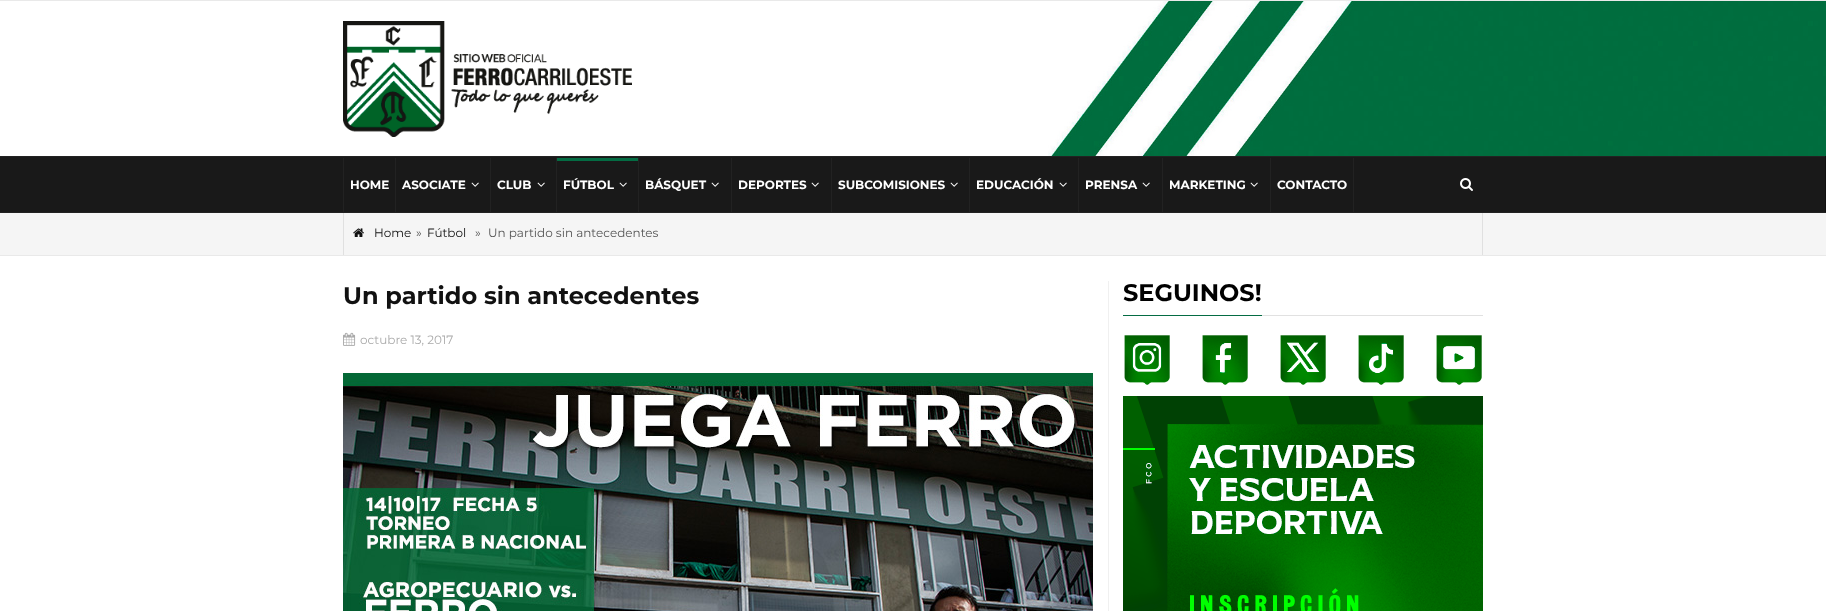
<?xml version="1.0" encoding="UTF-8"?>
<svg xmlns="http://www.w3.org/2000/svg" xmlns:xlink="http://www.w3.org/1999/xlink" width="1826" height="611">
  <rect width="100%" height="100%" fill="#ffffff" />
  <rect width="1826" height="1" fill="#e9e9e9" />
  <image x="1048" y="1" width="778" height="155" xlink:href="image1.png" />
  <image x="343" y="21" width="289" height="116" xlink:href="image2.png" />
  <rect y="213" width="1826" height="42" fill="#f5f5f5" />
  <rect x="1482" y="211" width="1" height="44" fill="#e0e0e0" />
  <rect x="343" y="211" width="1" height="44" fill="#e0e0e0" />
  <rect y="157" width="1825" height="55" fill="#191919" />
  <rect y="156" width="1826" height="1" fill="#222222" />
  <rect x="1825" y="156" width="1" height="57" fill="#111111" />
  <rect y="212" width="1826" height="1" fill="#222222" />
  <rect x="395" y="158" width="1" height="54" fill="#222222" />
  <rect x="343" y="158" width="1" height="54" fill="#222222" />
  <rect x="490" y="158" width="1" height="54" fill="#222222" />
  <image x="471" y="182" width="8" height="5" xlink:href="image3.png" />
  <rect x="556" y="158" width="1" height="54" fill="#222222" />
  <image x="537" y="182" width="8" height="5" xlink:href="image3.png" />
  <rect x="638" y="158" width="1" height="54" fill="#222222" />
  <rect x="557" y="158" width="81" height="3" fill="#046c43" />
  <image x="619" y="182" width="8" height="5" xlink:href="image3.png" />
  <rect x="731" y="158" width="1" height="54" fill="#222222" />
  <image x="711" y="182" width="8" height="5" xlink:href="image3.png" />
  <rect x="831" y="158" width="1" height="54" fill="#222222" />
  <image x="811" y="182" width="8" height="5" xlink:href="image3.png" />
  <rect x="969" y="158" width="1" height="54" fill="#222222" />
  <image x="950" y="182" width="8" height="5" xlink:href="image3.png" />
  <rect x="1078" y="158" width="1" height="54" fill="#222222" />
  <image x="1059" y="182" width="8" height="5" xlink:href="image3.png" />
  <rect x="1162" y="158" width="1" height="54" fill="#222222" />
  <image x="1142" y="182" width="8" height="5" xlink:href="image3.png" />
  <rect x="1270" y="158" width="1" height="54" fill="#222222" />
  <image x="1250" y="182" width="8" height="5" xlink:href="image3.png" />
  <rect x="1353" y="158" width="1" height="54" fill="#222222" />
  <image x="1460" y="178" width="13" height="13" xlink:href="image4.png" />
  <rect y="255" width="1826" height="1" fill="#e9e9e9" />
  <image x="353" y="228" width="11" height="9" xlink:href="image5.png" />
  <image x="343" y="332" width="13" height="14" xlink:href="image6.png" />
  <image x="343" y="373" width="750" height="238" xlink:href="image7.png" />
  <rect x="1108" y="281" width="1" height="330" fill="#f0f0f0" />
  <rect x="1262" y="315" width="221" height="1" fill="#e1e1e1" />
  <rect x="1123" y="315" width="139" height="1" fill="#046c43" />
  <image x="1124" y="335" width="46" height="50" xlink:href="image8.png" />
  <image x="1202" y="335" width="46" height="50" xlink:href="image9.png" />
  <image x="1280" y="335" width="46" height="50" xlink:href="image10.png" />
  <image x="1358" y="335" width="46" height="50" xlink:href="image11.png" />
  <image x="1436" y="335" width="46" height="50" xlink:href="image12.png" />
  <image x="1123" y="396" width="360" height="215" xlink:href="image13.png" />
  <text x="350" y="189" style="font-family: Montserrat; font-size: 12px; font-weight: bold; fill: #ffffff">HOME</text>
  <text x="402" y="189" style="font-family: Montserrat; font-size: 12px; font-weight: bold; fill: #ffffff">ASOCIATE</text>
  <text x="497" y="189" style="font-family: Montserrat; font-size: 12px; font-weight: bold; fill: #ffffff">CLUB</text>
  <text x="563" y="189" style="font-family: Montserrat; font-size: 12px; font-weight: bold; fill: #ffffff">FÚTBOL</text>
  <text x="645" y="189" style="font-family: Montserrat; font-size: 12px; font-weight: bold; fill: #ffffff">BÁSQUET</text>
  <text x="738" y="189" style="font-family: Montserrat; font-size: 12px; font-weight: bold; fill: #ffffff">DEPORTES</text>
  <text x="838" y="189" style="font-family: Montserrat; font-size: 12px; font-weight: bold; fill: #ffffff">SUBCOMISIONES</text>
  <text x="976" y="189" style="font-family: Montserrat; font-size: 12px; font-weight: bold; fill: #ffffff">EDUCACIÓN</text>
  <text x="1085" y="189" style="font-family: Montserrat; font-size: 12px; font-weight: bold; fill: #ffffff">PRENSA</text>
  <text x="1169" y="189" style="font-family: Montserrat; font-size: 12px; font-weight: bold; fill: #ffffff">MARKETING</text>
  <text x="1277" y="189" style="font-family: Montserrat; font-size: 12px; font-weight: bold; fill: #ffffff">CONTACTO</text>
  <text x="374" y="237" style="font-family: Montserrat; font-size: 12px; fill: #111111">Home</text>
  <text x="416" y="237" style="font-family: Montserrat; font-size: 12px; fill: #555555">»</text>
  <text x="427" y="237" style="font-family: Montserrat; font-size: 12px; fill: #111111">Fútbol</text>
  <text x="475" y="237" style="font-family: Montserrat; font-size: 12px; fill: #555555">»</text>
  <text x="488" y="237" style="font-family: Montserrat; font-size: 12px; fill: #555555">Un partido sin antecedentes</text>
  <text x="343" y="304" style="font-family: Montserrat; font-size: 24px; font-weight: bold; fill: #111111">Un partido sin antecedentes</text>
  <text x="360" y="344" style="font-family: Montserrat; font-size: 12px; fill: #aaaaaa">octubre 13, 2017</text>
  <text x="1123" y="301" style="font-family: Montserrat; font-size: 24px; font-weight: bold; fill: #000000">SEGUINOS!</text>
</svg>
